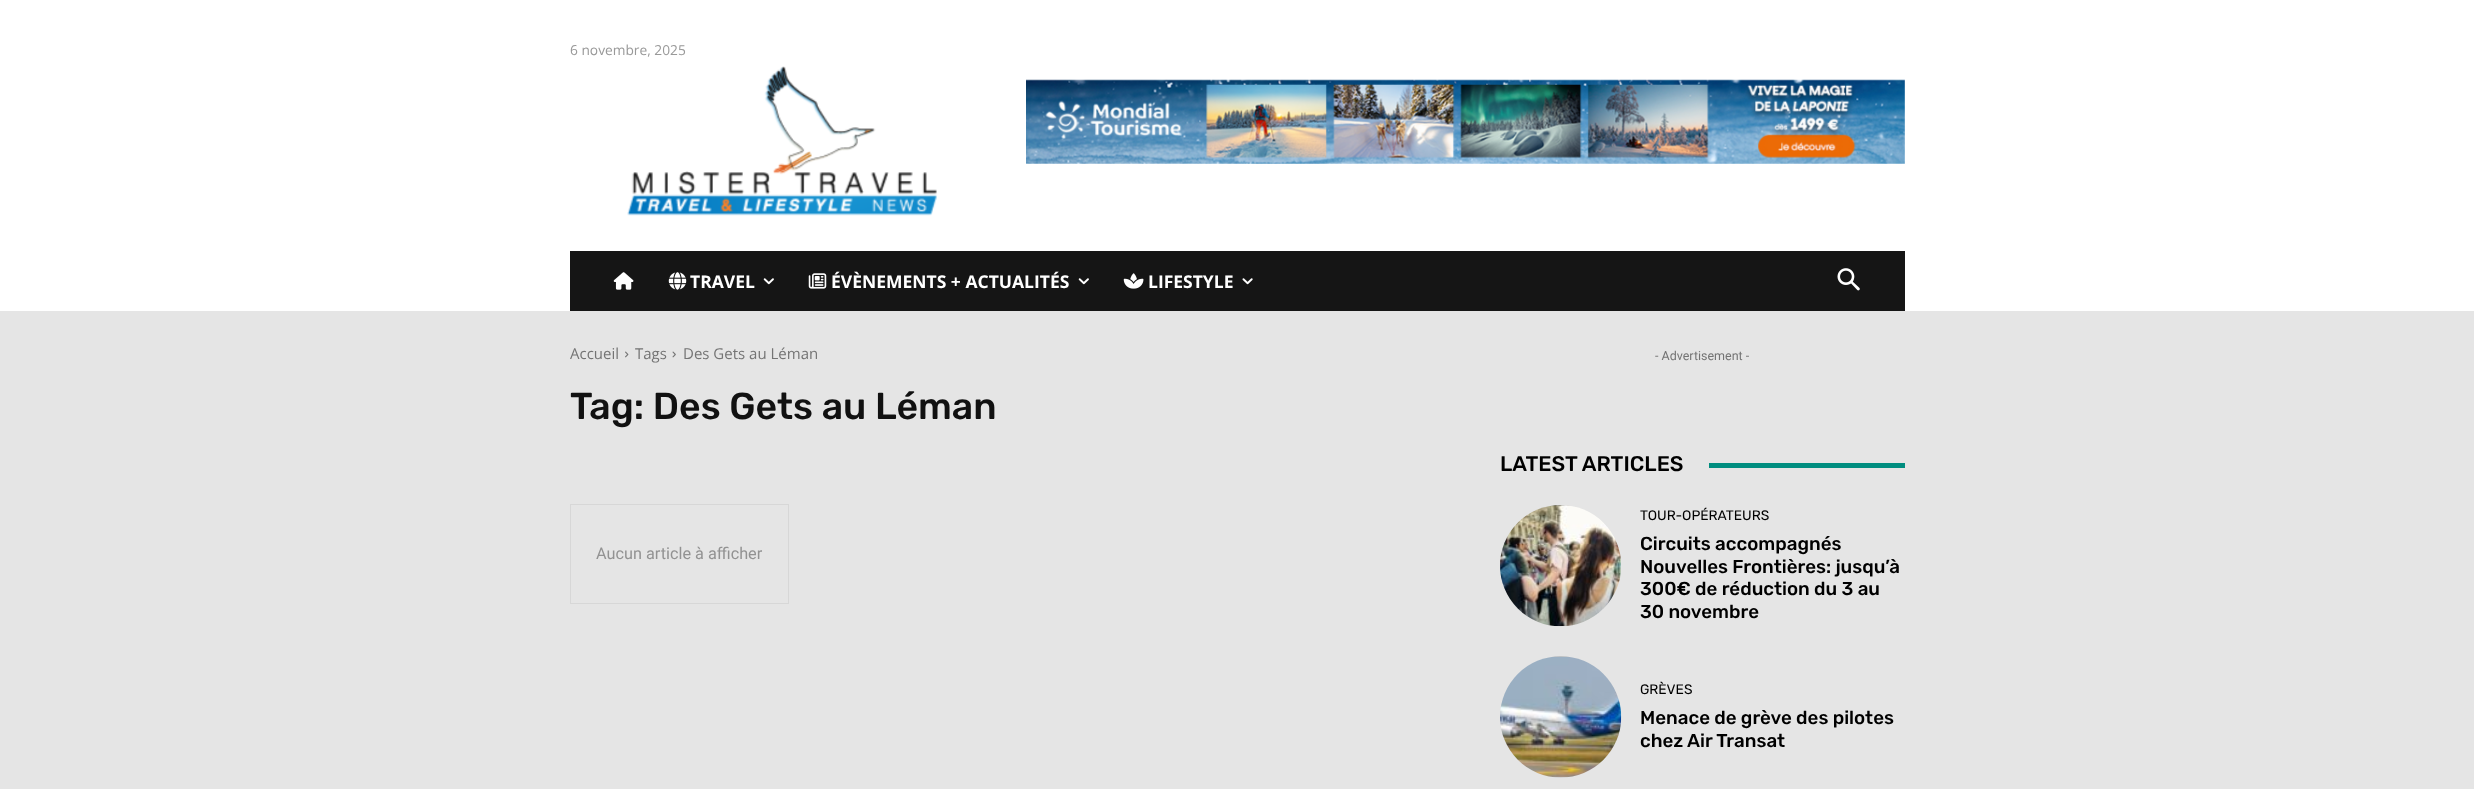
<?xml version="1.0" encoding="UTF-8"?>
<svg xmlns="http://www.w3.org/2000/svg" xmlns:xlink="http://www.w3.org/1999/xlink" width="2474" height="789">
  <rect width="100%" height="100%" fill="#e5e5e5" />
  <rect width="2474" height="311" fill="#ffffff" />
  <image x="627" y="66" width="310" height="150" xlink:href="image1.png" />
  <image x="1026" y="79" width="879" height="85" xlink:href="image2.png" />
  <rect x="570" y="251" width="1335" height="60" fill="#151515" />
  <image x="613" y="272" width="21" height="18" xlink:href="image3.png" />
  <image x="668" y="272" width="19" height="18" xlink:href="image4.png" />
  <image x="763" y="278" width="11" height="7" xlink:href="image5.png" />
  <image x="808" y="273" width="19" height="16" xlink:href="image6.png" />
  <image x="1078" y="278" width="11" height="7" xlink:href="image5.png" />
  <image x="1123" y="273" width="21" height="16" xlink:href="image7.png" />
  <image x="1242" y="278" width="11" height="7" xlink:href="image8.png" />
  <image x="1837" y="268" width="23" height="23" xlink:href="image9.png" />
  <image x="625" y="351" width="4" height="7" xlink:href="image10.png" />
  <image x="672" y="351" width="4" height="7" xlink:href="image11.png" />
  <rect x="570.5" y="504.5" width="218" height="99" fill="none" stroke="#d7d7d7" />
  <rect x="1709" y="463" width="196" height="5" fill="#008d7f" />
  <image x="1500" y="505" width="121" height="122" xlink:href="image12.png" />
  <image x="1500" y="656" width="122" height="122" xlink:href="image13.png" />
  <text x="570" y="55" style="font-family: Open Sans; font-size: 13.75px; fill: #999999">6 novembre, 2025</text>
  <text x="690" y="288" style="font-family: Open Sans; font-size: 17.5px; font-weight: bold; fill: #ffffff">TRAVEL</text>
  <text x="831" y="288" style="font-family: Open Sans; font-size: 17.5px; font-weight: bold; fill: #ffffff">ÉVÈNEMENTS + ACTUALITÉS</text>
  <text x="1148" y="288" style="font-family: Open Sans; font-size: 17.5px; font-weight: bold; fill: #ffffff">LIFESTYLE</text>
  <text x="570" y="359" style="font-family: Open Sans; font-size: 15px; fill: #747474">Accueil</text>
  <text x="635" y="359" style="font-family: Open Sans; font-size: 15px; fill: #747474">Tags</text>
  <text x="683" y="359" style="font-family: Open Sans; font-size: 15px; fill: #747474">Des Gets au Léman</text>
  <text x="570" y="419" style="font-family: Rubik; font-size: 37.5px; font-weight: 500; fill: #111111">Tag: Des Gets au Léman</text>
  <text x="596" y="559" style="font-family: Roboto; font-size: 16.25px; fill: #929292">Aucun article à afficher</text>
  <text x="1655" y="360" style="font-family: Roboto; font-size: 12.5px; fill: #747474">- Advertisement -</text>
  <text x="1500" y="471" style="font-family: Rubik; font-size: 21.25px; font-weight: 500; fill: #000000">LATEST ARTICLES</text>
  <text x="1640" y="520" style="font-family: Rubik; font-size: 13.75px; fill: #000000">TOUR-OPÉRATEURS</text>
  <text x="1640" y="550" style="font-family: Rubik; font-size: 18.75px; font-weight: 500; fill: #000000">Circuits accompagnés</text>
  <text x="1640" y="573" style="font-family: Rubik; font-size: 18.75px; font-weight: 500; fill: #000000">Nouvelles Frontières: jusqu’à</text>
  <text x="1640" y="595" style="font-family: Rubik; font-size: 18.75px; font-weight: 500; fill: #000000">300€ de réduction du 3 au</text>
  <text x="1640" y="618" style="font-family: Rubik; font-size: 18.75px; font-weight: 500; fill: #000000">30 novembre</text>
  <text x="1640" y="694" style="font-family: Rubik; font-size: 13.75px; fill: #000000">GRÈVES</text>
  <text x="1640" y="724" style="font-family: Rubik; font-size: 18.75px; font-weight: 500; fill: #000000">Menace de grève des pilotes</text>
  <text x="1640" y="747" style="font-family: Rubik; font-size: 18.75px; font-weight: 500; fill: #000000">chez Air Transat</text>
</svg>
